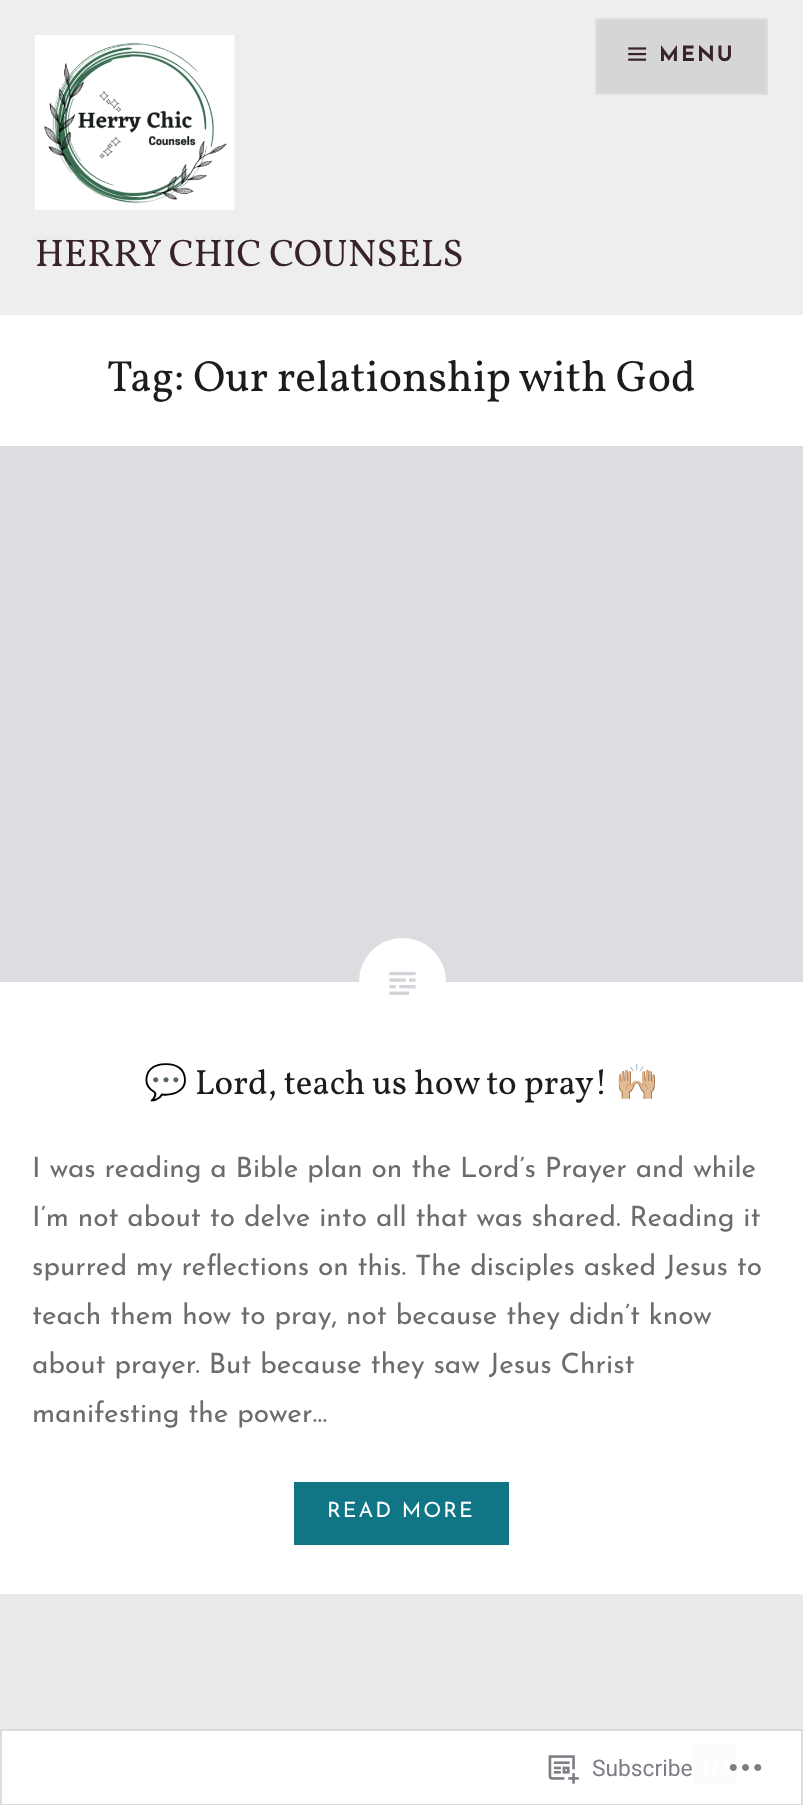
<?xml version="1.0" encoding="UTF-8"?>
<svg xmlns="http://www.w3.org/2000/svg" xmlns:xlink="http://www.w3.org/1999/xlink" width="803" height="1805">
  <rect width="100%" height="100%" fill="#ffffff" />
  <rect width="803" height="315" fill="#eeeef0" />
  <rect x="596" y="19" width="171" height="75" fill="#d6d6d8" stroke="#dedee0" stroke-width="2" />
  <image x="628" y="47" width="19" height="14" xlink:href="image1.png" />
  <image x="35" y="35" width="200" height="175" xlink:href="image2.png" />
  <rect y="446" width="803" height="536" fill="#dbdde0" />
  <rect x="359" y="938" width="87" height="88" rx="43.5" fill="#ffffff" />
  <image x="389" y="971" width="27" height="24" xlink:href="image3.png" />
  <rect x="294" y="1482" width="215" height="63" fill="#107686" />
  <rect y="1594" width="803" height="135" fill="#e9eaec" />
  <rect x="693" y="1743" width="44" height="42" fill="#fafcfd" />
  <image x="701" y="1759" width="29" height="17" xlink:href="image4.png" />
  <rect x="1" y="1730" width="801" height="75" fill="none" stroke="#dcdcde" stroke-width="2" />
  <image x="548" y="1755" width="31" height="29" xlink:href="image5.png" />
  <image x="729" y="1764" width="33" height="7" xlink:href="image6.png" />
  <text x="659" y="61" style="font-family: Josefin Sans; font-size: 21px; font-weight: bold; letter-spacing: 2px; fill: #382328">MENU</text>
  <text x="35" y="266" style="font-family: Vollkorn; font-size: 38.5px; fill: #382328">HERRY CHIC COUNSELS</text>
  <text x="107" y="391" style="font-family: Vollkorn; font-size: 43.75px; fill: #1a1c1e">Tag: Our relationship with God</text>
  <text x="144" y="1094" style="font-family: Noto Color Emoji; font-size: 35px; fill: #1a1c1e">💬</text>
  <text x="195" y="1094" style="font-family: Vollkorn; font-size: 35px; fill: #1a1c1e">Lord, teach us how to pray!</text>
  <text x="615" y="1094" style="font-family: Noto Color Emoji; font-size: 35px; fill: #1a1c1e">🙌🏼</text>
  <text x="32" y="1177" style="font-family: Josefin Sans; font-size: 28px; fill: #6a6c6e">I was reading a Bible plan on the Lord’s Prayer and while</text>
  <text x="32" y="1226" style="font-family: Josefin Sans; font-size: 28px; fill: #6a6c6e">I’m not about to delve into all that was shared. Reading it</text>
  <text x="32" y="1275" style="font-family: Josefin Sans; font-size: 28px; fill: #6a6c6e">spurred my reflections on this. The disciples asked Jesus to</text>
  <text x="32" y="1324" style="font-family: Josefin Sans; font-size: 28px; fill: #6a6c6e">teach them how to pray, not because they didn’t know</text>
  <text x="32" y="1373" style="font-family: Josefin Sans; font-size: 28px; fill: #6a6c6e">about prayer. But because they saw Jesus Christ</text>
  <text x="32" y="1422" style="font-family: Josefin Sans; font-size: 28px; fill: #6a6c6e">manifesting the power…</text>
  <text x="327" y="1517" style="font-family: Josefin Sans; font-size: 21px; letter-spacing: 2px; fill: #ffffff">READ MORE</text>
  <text x="592" y="1776" style="font-family: Roboto; font-size: 22.75px; fill: #7a7e84">Subscribe</text>
</svg>
